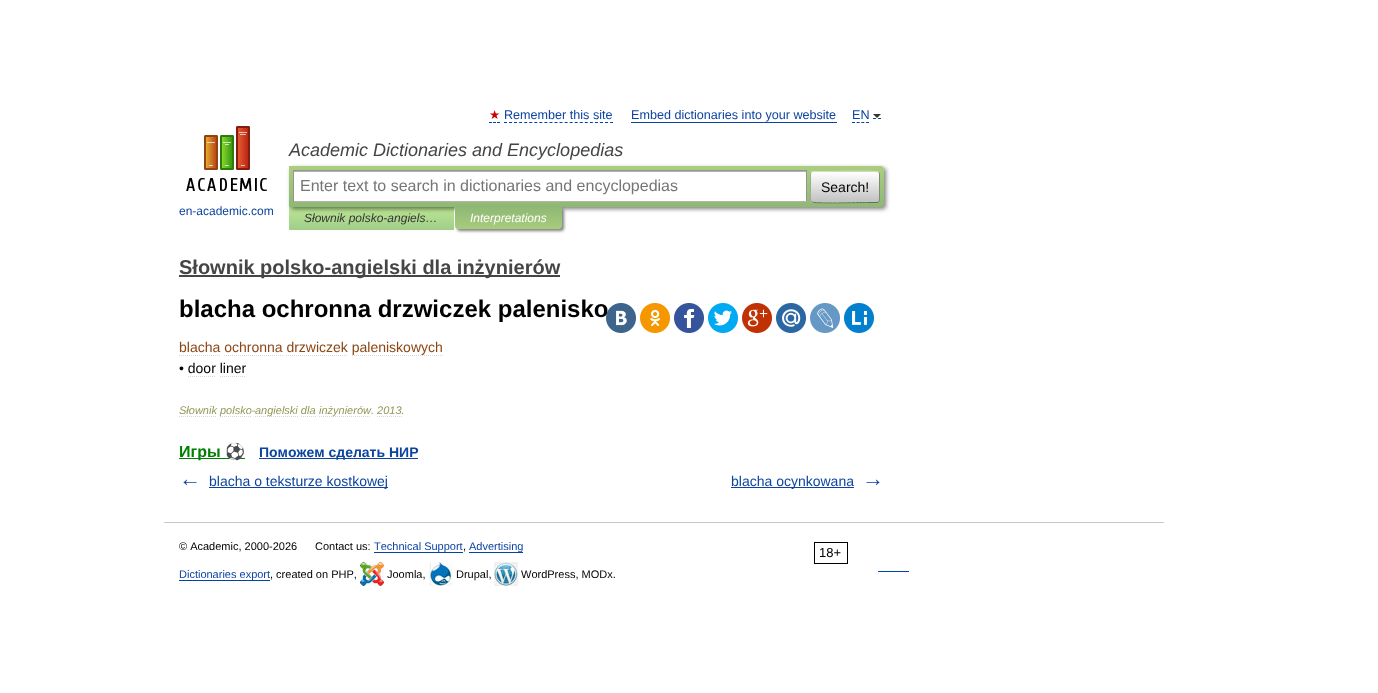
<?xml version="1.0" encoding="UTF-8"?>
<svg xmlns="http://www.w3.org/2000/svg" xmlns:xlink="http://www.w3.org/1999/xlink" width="1378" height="693">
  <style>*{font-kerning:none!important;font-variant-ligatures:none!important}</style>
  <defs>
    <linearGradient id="g1" gradientUnits="userSpaceOnUse" x1="372" y1="207" x2="372" y2="230"><stop offset="0" stop-color="#bde693" /><stop offset="1" stop-color="#a0ce8a" /></linearGradient>
    <linearGradient id="g2" gradientUnits="userSpaceOnUse" x1="587" y1="166" x2="587" y2="207"><stop offset="0" stop-color="#abcf7e" /><stop offset="1" stop-color="#8eb874" /></linearGradient>
    <clipPath id="clip1"><rect x="810" y="171" width="70" height="32" rx="3" /></clipPath>
    <linearGradient id="g3" gradientUnits="userSpaceOnUse" x1="845" y1="142" x2="845" y2="172"><stop offset="0" stop-color="#ffffff" /><stop offset="1" stop-color="#c1c1c1" /></linearGradient>
    <linearGradient id="g4" gradientUnits="userSpaceOnUse" x1="845" y1="172" x2="845" y2="202"><stop offset="0" stop-color="#ffffff" /><stop offset="1" stop-color="#c1c1c1" /></linearGradient>
    <linearGradient id="g5" gradientUnits="userSpaceOnUse" x1="845" y1="202" x2="845" y2="232"><stop offset="0" stop-color="#ffffff" /><stop offset="1" stop-color="#c1c1c1" /></linearGradient>
    <linearGradient id="g6" gradientUnits="userSpaceOnUse" x1="509" y1="207" x2="509" y2="229"><stop offset="0" stop-color="#8fb875" /><stop offset="1" stop-color="#a7cc7d" /></linearGradient>
  </defs>
  <rect width="100%" height="100%" fill="#ffffff" />
  <path d="M 489 122.5 h 3 m 1 0 h 3 m 1 0 h 3" fill="none" stroke="#0044aa" />
  <path d="M 504 122.5 h 109" fill="none" stroke="#0044aa" stroke-dasharray="3 2.05" />
  <rect x="631" y="122" width="206" height="1" fill="#0d44a0" />
  <path d="M 852 122.5 h 17" fill="none" stroke="#0044aa" stroke-dasharray="3 1.67" />
  <path d="M 873 118.5 h 3 m 2 0 h 3" fill="none" stroke="#0044aa" />
  <path d="M 873 114 h 8 l -4 4 z" fill="#333333" />
  <rect x="289" y="207" width="165" height="23" fill="url(#g1)" />
  <rect x="291" y="168" width="595" height="41" rx="3" fill="#000000" fill-opacity="0.5" filter="blur(2px)" />
  <path d="M 289 166 h 592 c 1.5 0 3 1.5 3 3 v 35 c 0 1.5 -1.5 3 -3 3 h -592 z" fill="url(#g2)" />
  <rect x="294" y="172" width="512" height="29" fill="#ffffff" />
  <rect x="294" y="171" width="512" height="1" fill="#b3b3b3" />
  <rect x="293" y="170" width="514" height="1" fill="#949494" />
  <rect x="806" y="170" width="1" height="32" fill="#949494" />
  <rect x="293" y="201" width="514" height="1" fill="#b4b4b4" />
  <rect x="293" y="170" width="1" height="32" fill="#949494" />
  <g clip-path="url(#clip1)">
    <rect x="810" y="171" width="70" height="1" fill="url(#g3)" />
    <rect x="810" y="172" width="70" height="30" fill="url(#g4)" />
    <rect x="810" y="202" width="70" height="1" fill="url(#g5)" />
  </g>
  <path d="M 811 172 l 2 -0.5 h 10.5 c 6.5 0 53 -1 55 0.5 h 0.5" fill="none" stroke="#d1e4bc" />
  <path d="M 879 172 c 0 0.5 0.5 1.5 0.5 2 v 26 c 0 0.5 -0.5 1.5 -0.5 2" fill="none" stroke="#7a8e69" />
  <path d="M 879 202 l -2 0.5 h -10.5 c -6.5 0 -53 1 -55 -0.5 h -0.5" fill="none" stroke="#5d7250" />
  <path d="M 811 202 c 0 -0.5 -0.5 -1.5 -0.5 -2 v -26 c 0 -0.5 0.5 -1.5 0.5 -2" fill="none" stroke="#9aae89" />
  <image x="186" y="126" width="81" height="65" xlink:href="image1.png" />
  <rect x="457" y="209" width="107" height="22" rx="3" fill="#000000" fill-opacity="0.5" filter="blur(1.5px)" />
  <path d="M 455 207 h 107 v 19 c 0 1.5 -1.5 3 -3 3 h -101 c -1.5 0 -3 -1.5 -3 -3 z" fill="url(#g6)" />
  <rect x="179" y="275" width="381" height="2" fill="#454545" />
  <image x="640" y="303" width="30" height="30" xlink:href="image3.png" />
  <image x="674" y="303" width="30" height="30" xlink:href="image4.png" />
  <image x="708" y="303" width="30" height="30" xlink:href="image5.png" />
  <image x="742" y="303" width="30" height="30" xlink:href="image6.png" />
  <image x="776" y="303" width="30" height="30" xlink:href="image7.png" />
  <image x="810" y="303" width="30" height="30" xlink:href="image8.png" />
  <image x="844" y="303" width="30" height="30" xlink:href="image9.png" />
  <path d="M 179 355.5 h 41" fill="none" stroke="#d9d9d9" stroke-dasharray="1 1" />
  <path d="M 224 355.5 h 59" fill="none" stroke="#d9d9d9" stroke-dasharray="1 1" />
  <path d="M 286 355.5 h 62" fill="none" stroke="#d9d9d9" stroke-dasharray="1 1" />
  <path d="M 352 355.5 h 91" fill="none" stroke="#d9d9d9" stroke-dasharray="1 1" />
  <path d="M 188 376.5 h 28 m 4 0 h 26" fill="none" stroke="#d9d9d9" stroke-dasharray="1 1" />
  <path d="M 179 416.5 h 38" fill="none" stroke="#d9d9d9" stroke-dasharray="1 1" />
  <path d="M 220 416.5 h 32" fill="none" stroke="#d9d9d9" stroke-dasharray="1 1" />
  <path d="M 319 416.5 h 52" fill="none" stroke="#d9d9d9" stroke-dasharray="1 1" />
  <rect x="179" y="458" width="66" height="1" fill="#008000" />
  <rect x="259" y="458" width="159" height="1" fill="#0d44a0" />
  <rect x="209" y="487" width="179" height="1" fill="#0d44a0" />
  <rect x="731" y="487" width="123" height="1" fill="#0d44a0" />
  <rect x="164" y="522" width="1000" height="1" fill="#c7c7c7" />
  <rect x="374" y="552" width="89" height="1" fill="#0044aa" />
  <rect x="469" y="552" width="54" height="1" fill="#0044aa" />
  <rect x="814.5" y="542.5" width="33" height="21" fill="none" stroke="#000000" />
  <rect x="179" y="580" width="91" height="1" fill="#0044aa" />
  <image x="360" y="562" width="24" height="24" xlink:href="image10.png" />
  <image x="429" y="562" width="24" height="24" xlink:href="image11.png" />
  <image x="494" y="562" width="24" height="24" xlink:href="image12.png" />
  <rect x="878" y="571" width="31" height="1" fill="#0044aa" />
  <text x="489" y="119" style="font-family: DejaVu Sans; font-size: 12.6px; fill: #cc0000">★</text>
  <text x="504" y="119" style="font-family: Liberation Sans; font-size: 12.6px; fill: #0d44a0">Remember this site</text>
  <text x="631" y="119" style="font-family: Liberation Sans; font-size: 12.6px; fill: #0d44a0">Embed dictionaries into your website</text>
  <text x="852" y="119" style="font-family: Liberation Sans; font-size: 12.6px; fill: #0d44a0">EN</text>
  <text x="289" y="156" style="font-family: Liberation Sans; font-size: 18px; font-style: italic; fill: #454545">Academic Dictionaries and Encyclopedias</text>
  <text x="300" y="191" style="font-family: Liberation Sans; font-size: 16px; fill: #757575">Enter text to search in dictionaries and encyclopedias</text>
  <text x="821" y="192" style="font-family: Liberation Sans; font-size: 14px; fill: #000000">Search!</text>
  <text x="179" y="215" style="font-family: Liberation Sans; font-size: 12px; fill: #0d44a0">en-academic.com</text>
  <text x="304" y="222" style="font-family: Liberation Sans; font-size: 12px; font-style: italic; fill: #353535">Słownik polsko-angiels…</text>
  <text x="470" y="222" style="font-family: Liberation Sans; font-size: 12px; font-style: italic; fill: #ffffff">Interpretations</text>
  <text x="179" y="274" style="font-family: Liberation Sans; font-size: 20px; font-weight: bold; fill: #454545">Słownik polsko-angielski dla inżynierów</text>
  <text x="179" y="317" style="font-family: Liberation Sans; font-size: 24px; font-weight: bold; fill: #000000">blacha ochronna drzwiczek palenisko</text>
  <image x="606" y="303" width="30" height="30" xlink:href="image2.png" />
  <text x="179" y="352" style="font-family: Liberation Sans; font-size: 14px; fill: #8b4513">blacha ochronna drzwiczek paleniskowych</text>
  <text x="179" y="373" style="font-family: Liberation Sans; font-size: 14px; fill: #000000">• door liner</text>
  <text x="179" y="414" style="font-family: Liberation Sans; font-size: 11px; font-style: italic; fill: #939756">Słownik</text>
  <text x="220" y="414" style="font-family: Liberation Sans; font-size: 11px; font-style: italic; fill: #939756">polsko-</text>
  <path d="M 255 416.5 h 43" fill="none" stroke="#d9d9d9" stroke-dasharray="1 1" />
  <text x="255" y="414" style="font-family: Liberation Sans; font-size: 11px; font-style: italic; fill: #939756">angielski dla</text>
  <path d="M 301 416.5 h 15" fill="none" stroke="#d9d9d9" stroke-dasharray="1 1" />
  <text x="319" y="414" style="font-family: Liberation Sans; font-size: 11px; font-style: italic; fill: #939756">inżynierów. 2013.</text>
  <path d="M 377 416.5 h 25" fill="none" stroke="#d9d9d9" stroke-dasharray="1 1" />
  <text x="179" y="457" style="font-family: Liberation Sans; font-size: 16px; font-weight: bold; fill: #008000">Игры</text>
  <text x="225" y="457" style="font-family: Noto Color Emoji; font-size: 16px; font-weight: bold; fill: #008000">⚽</text>
  <text x="259" y="457" style="font-family: Liberation Sans; font-size: 14px; font-weight: bold; fill: #0d44a0">Поможем сделать НИР</text>
  <text x="179" y="486" style="font-family: Liberation Sans; font-size: 22px; font-weight: bold; fill: #0d44a0">←</text>
  <text x="209" y="486" style="font-family: Liberation Sans; font-size: 14px; fill: #0d44a0">blacha o teksturze kostkowej</text>
  <text x="731" y="486" style="font-family: Liberation Sans; font-size: 14px; fill: #0d44a0">blacha ocynkowana</text>
  <text x="862" y="486" style="font-family: Liberation Sans; font-size: 22px; font-weight: bold; fill: #0d44a0">→</text>
  <text x="179" y="550" style="font-family: Liberation Sans; font-size: 11px; fill: #000000">© Academic, 2000-2026</text>
  <text x="315" y="550" style="font-family: Liberation Sans; font-size: 11px; fill: #000000">Contact us:</text>
  <text x="374" y="550" style="font-family: Liberation Sans; font-size: 11px; fill: #0d44a0">Technical Support</text>
  <text x="463" y="550" style="font-family: Liberation Sans; font-size: 11px; fill: #000000">,</text>
  <text x="469" y="550" style="font-family: Liberation Sans; font-size: 11px; fill: #0d44a0">Advertising</text>
  <text x="819" y="557" style="font-family: Liberation Sans; font-size: 13px; fill: #000000">18+</text>
  <text x="179" y="578" style="font-family: Liberation Sans; font-size: 11px; fill: #0d44a0">Dictionaries export</text>
  <text x="270" y="578" style="font-family: Liberation Sans; font-size: 11px; fill: #000000">, created on PHP,</text>
  <text x="387" y="578" style="font-family: Liberation Sans; font-size: 11px; fill: #000000">Joomla,</text>
  <text x="456" y="578" style="font-family: Liberation Sans; font-size: 11px; fill: #000000">Drupal,</text>
  <text x="521" y="578" style="font-family: Liberation Sans; font-size: 11px; fill: #000000">WordPress, MODx.</text>
</svg>
